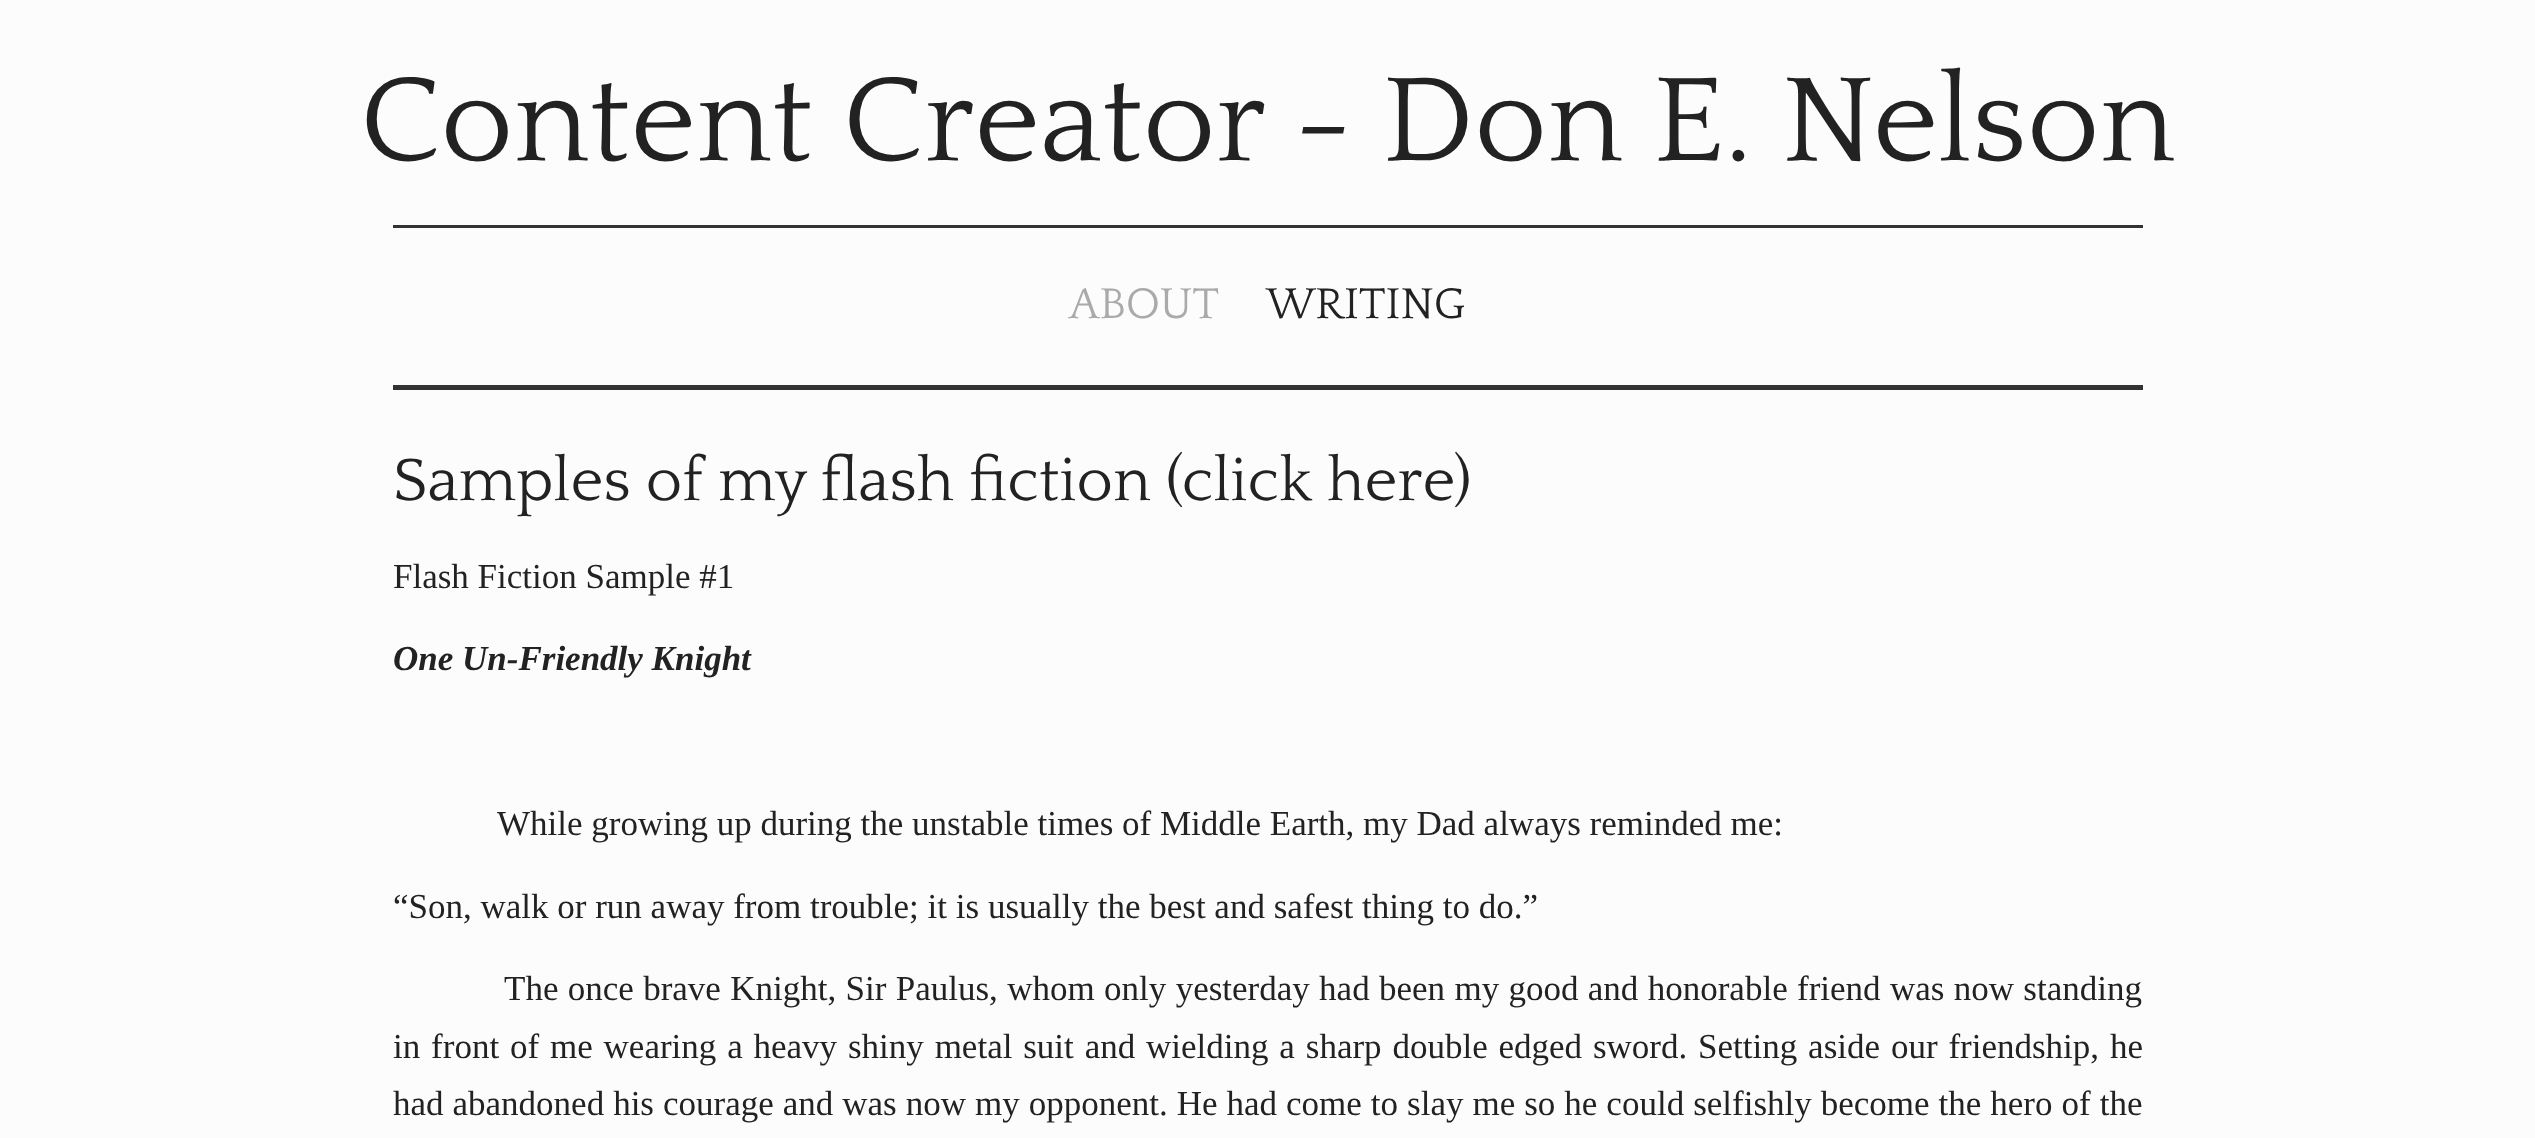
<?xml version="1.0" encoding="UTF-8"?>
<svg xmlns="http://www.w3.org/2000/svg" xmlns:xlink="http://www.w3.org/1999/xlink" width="2535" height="1138">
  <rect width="100%" height="100%" fill="#fcfcfc" />
  <rect x="393" y="225" width="1750" height="3" fill="#333333" />
  <rect x="393" y="385" width="1750" height="5" fill="#333333" />
  <text x="360" y="160" style="font-family: Quattrocento; font-size: 125px; fill: #222222">Content Creator - Don E. Nelson</text>
  <text x="1069" y="318" style="font-family: Quattrocento; font-size: 45px; fill: #aaaaaa">ABOUT</text>
  <text x="1266" y="318" style="font-family: Quattrocento; font-size: 45px; fill: #222222">WRITING</text>
  <text x="393" y="500" style="font-family: Quattrocento; font-size: 62.5px; fill: #222222">Samples of my flash fiction (click here)</text>
  <text x="393" y="588" style="font-family: Liberation Serif; font-size: 35px; fill: #222222">Flash Fiction Sample #1</text>
  <text x="393" y="670" style="font-family: Liberation Serif; font-size: 35px; font-weight: bold; font-style: italic; fill: #222222">One Un-Friendly Knight</text>
  <text x="497" y="835" style="font-family: Liberation Serif; font-size: 35px; fill: #222222">While growing up during the unstable times of Middle Earth, my Dad always reminded me:</text>
  <text x="393" y="918" style="font-family: Liberation Serif; font-size: 35px; fill: #222222">“Son, walk or run away from trouble; it is usually the best and safest thing to do.”</text>
  <text x="504" y="1000" word-spacing="0.6" style="font-family: Liberation Serif; font-size: 35px; fill: #222222">The once brave Knight, Sir Paulus, whom only yesterday had been my good and honorable friend was now standing</text>
  <text x="393" y="1058" word-spacing="2.1" style="font-family: Liberation Serif; font-size: 35px; fill: #222222">in front of me wearing a heavy shiny metal suit and wielding a sharp double edged sword. Setting aside our friendship, he</text>
  <text x="393" y="1115" word-spacing="0.25" style="font-family: Liberation Serif; font-size: 35px; fill: #222222">had abandoned his courage and was now my opponent. He had come to slay me so he could selfishly become the hero of the</text>
</svg>
